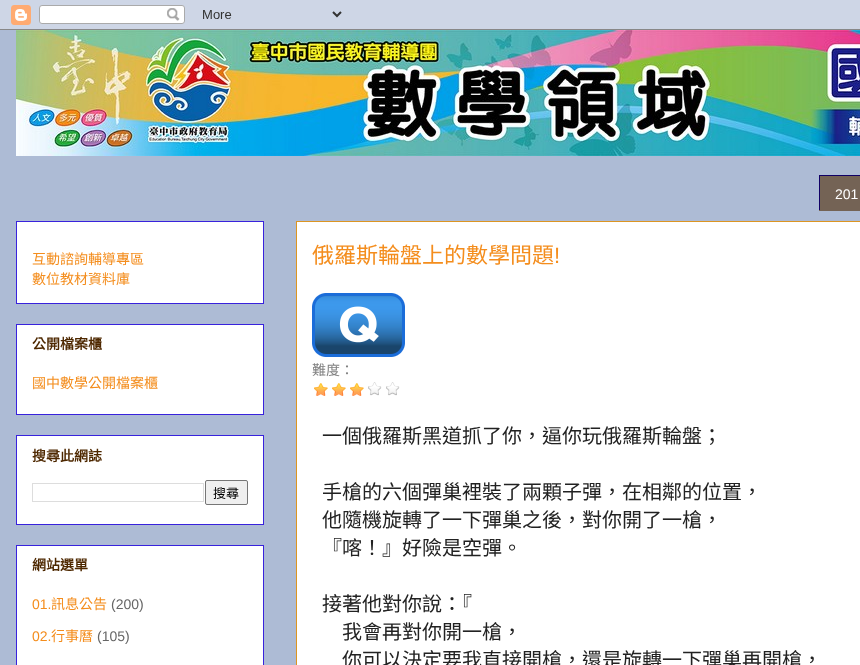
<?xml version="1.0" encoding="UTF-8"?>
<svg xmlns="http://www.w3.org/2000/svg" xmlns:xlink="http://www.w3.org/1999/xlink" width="860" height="665">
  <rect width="100%" height="100%" fill="#adbbd5" />
  <image x="0" y="0" width="860" height="30" xlink:href="image1.png" />
  <image x="16" y="30" width="844" height="126" xlink:href="image2.png" />
  <rect x="16.5" y="221.5" width="247" height="82" fill="#ffffff" stroke="#3822dc" />
  <rect x="16.5" y="324.5" width="247" height="90" fill="#ffffff" stroke="#3822dc" />
  <rect x="16.5" y="435.5" width="247" height="89" fill="#ffffff" stroke="#3822dc" />
  <rect x="32.5" y="483.5" width="171" height="18" fill="none" stroke="#dddddd" />
  <rect x="205.5" y="480.5" width="42" height="24" rx="1.5" fill="#efefef" stroke="#767676" />
  <rect x="16.5" y="545.5" width="247" height="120" fill="#ffffff" stroke="#3822dc" />
  <rect x="296.5" y="221.5" width="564" height="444" fill="#ffffff" stroke="#dc9522" />
  <rect x="819" y="176" width="41" height="35" fill="#746355" />
  <rect x="819" y="175" width="41" height="1" fill="#110066" />
  <rect x="819" y="176" width="1" height="34" fill="#110066" />
  <image x="312" y="293" width="93" height="64" xlink:href="image3.png" />
  <image x="314" y="383" width="14" height="13" xlink:href="image4.png" />
  <image x="332" y="383" width="14" height="13" xlink:href="image4.png" />
  <image x="350" y="383" width="14" height="13" xlink:href="image4.png" />
  <image x="368" y="382" width="14" height="14" xlink:href="image5.png" />
  <image x="386" y="382" width="14" height="14" xlink:href="image5.png" />
  <text x="32" y="264" style="font-family: Noto Sans CJK TC; font-size: 14px; fill: #f48d1d">互動諮詢輔導專區</text>
  <text x="32" y="284" style="font-family: Noto Sans CJK TC; font-size: 14px; fill: #f48d1d">數位教材資料庫</text>
  <text x="32" y="349" style="font-family: Noto Sans CJK TC; font-size: 14px; font-weight: bold; fill: #4e2800">公開檔案櫃</text>
  <text x="32" y="388" style="font-family: Noto Sans CJK TC; font-size: 14px; fill: #f48d1d">國中數學公開檔案櫃</text>
  <text x="32" y="461" style="font-family: Noto Sans CJK TC; font-size: 14px; font-weight: bold; fill: #4e2800">搜尋此網誌</text>
  <text x="213" y="498" style="font-family: Noto Sans CJK TC; font-size: 13px; fill: #000000">搜尋</text>
  <text x="32" y="570" style="font-family: Noto Sans CJK TC; font-size: 14px; font-weight: bold; fill: #4e2800">網站選單</text>
  <text x="32" y="609" style="font-family: Liberation Sans; font-size: 14px; fill: #f48d1d">01.</text>
  <text x="51" y="609" style="font-family: Noto Sans CJK TC; font-size: 14px; fill: #f48d1d">訊息公告</text>
  <text x="111" y="609" style="font-family: Liberation Sans; font-size: 14px; fill: #666666">(200)</text>
  <text x="32" y="641" style="font-family: Liberation Sans; font-size: 14px; fill: #f48d1d">02.</text>
  <text x="51" y="641" style="font-family: Noto Sans CJK TC; font-size: 14px; fill: #f48d1d">行事曆</text>
  <text x="97" y="641" style="font-family: Liberation Sans; font-size: 14px; fill: #666666">(105)</text>
  <text x="835" y="199" style="font-family: Liberation Sans; font-size: 14px; fill: #ffffff">201</text>
  <text x="312" y="263" style="font-family: Noto Sans CJK TC; font-size: 22px; fill: #f48d1d">俄羅斯輪盤上的數學問題</text>
  <text x="554" y="263" style="font-family: Liberation Sans; font-size: 22px; fill: #f48d1d">!</text>
  <text x="312" y="375" style="font-family: Noto Sans CJK TC; font-size: 14px; fill: #808080">難度：</text>
  <text x="322" y="443" style="font-family: Noto Sans CJK TC; font-size: 20px; fill: #222222">一個俄羅斯黑道抓了你，逼你玩俄羅斯輪盤；</text>
  <text x="322" y="499" style="font-family: Noto Sans CJK TC; font-size: 20px; fill: #222222">手槍的六個彈巢裡裝了兩顆子彈，在相鄰的位置，</text>
  <text x="322" y="527" style="font-family: Noto Sans CJK TC; font-size: 20px; fill: #222222">他隨機旋轉了一下彈巢之後，對你開了一槍，</text>
  <text x="322" y="555" style="font-family: Noto Sans CJK TC; font-size: 20px; fill: #222222">『喀！』好險是空彈。</text>
  <text x="322" y="611" style="font-family: Noto Sans CJK TC; font-size: 20px; fill: #222222">接著他對你說：『</text>
  <text x="342" y="639" style="font-family: Noto Sans CJK TC; font-size: 20px; fill: #222222">我會再對你開一槍，</text>
  <text x="342" y="667" style="font-family: Noto Sans CJK TC; font-size: 20px; fill: #222222">你可以決定要我直接開槍，還是旋轉一下彈巢再開槍，</text>
</svg>
